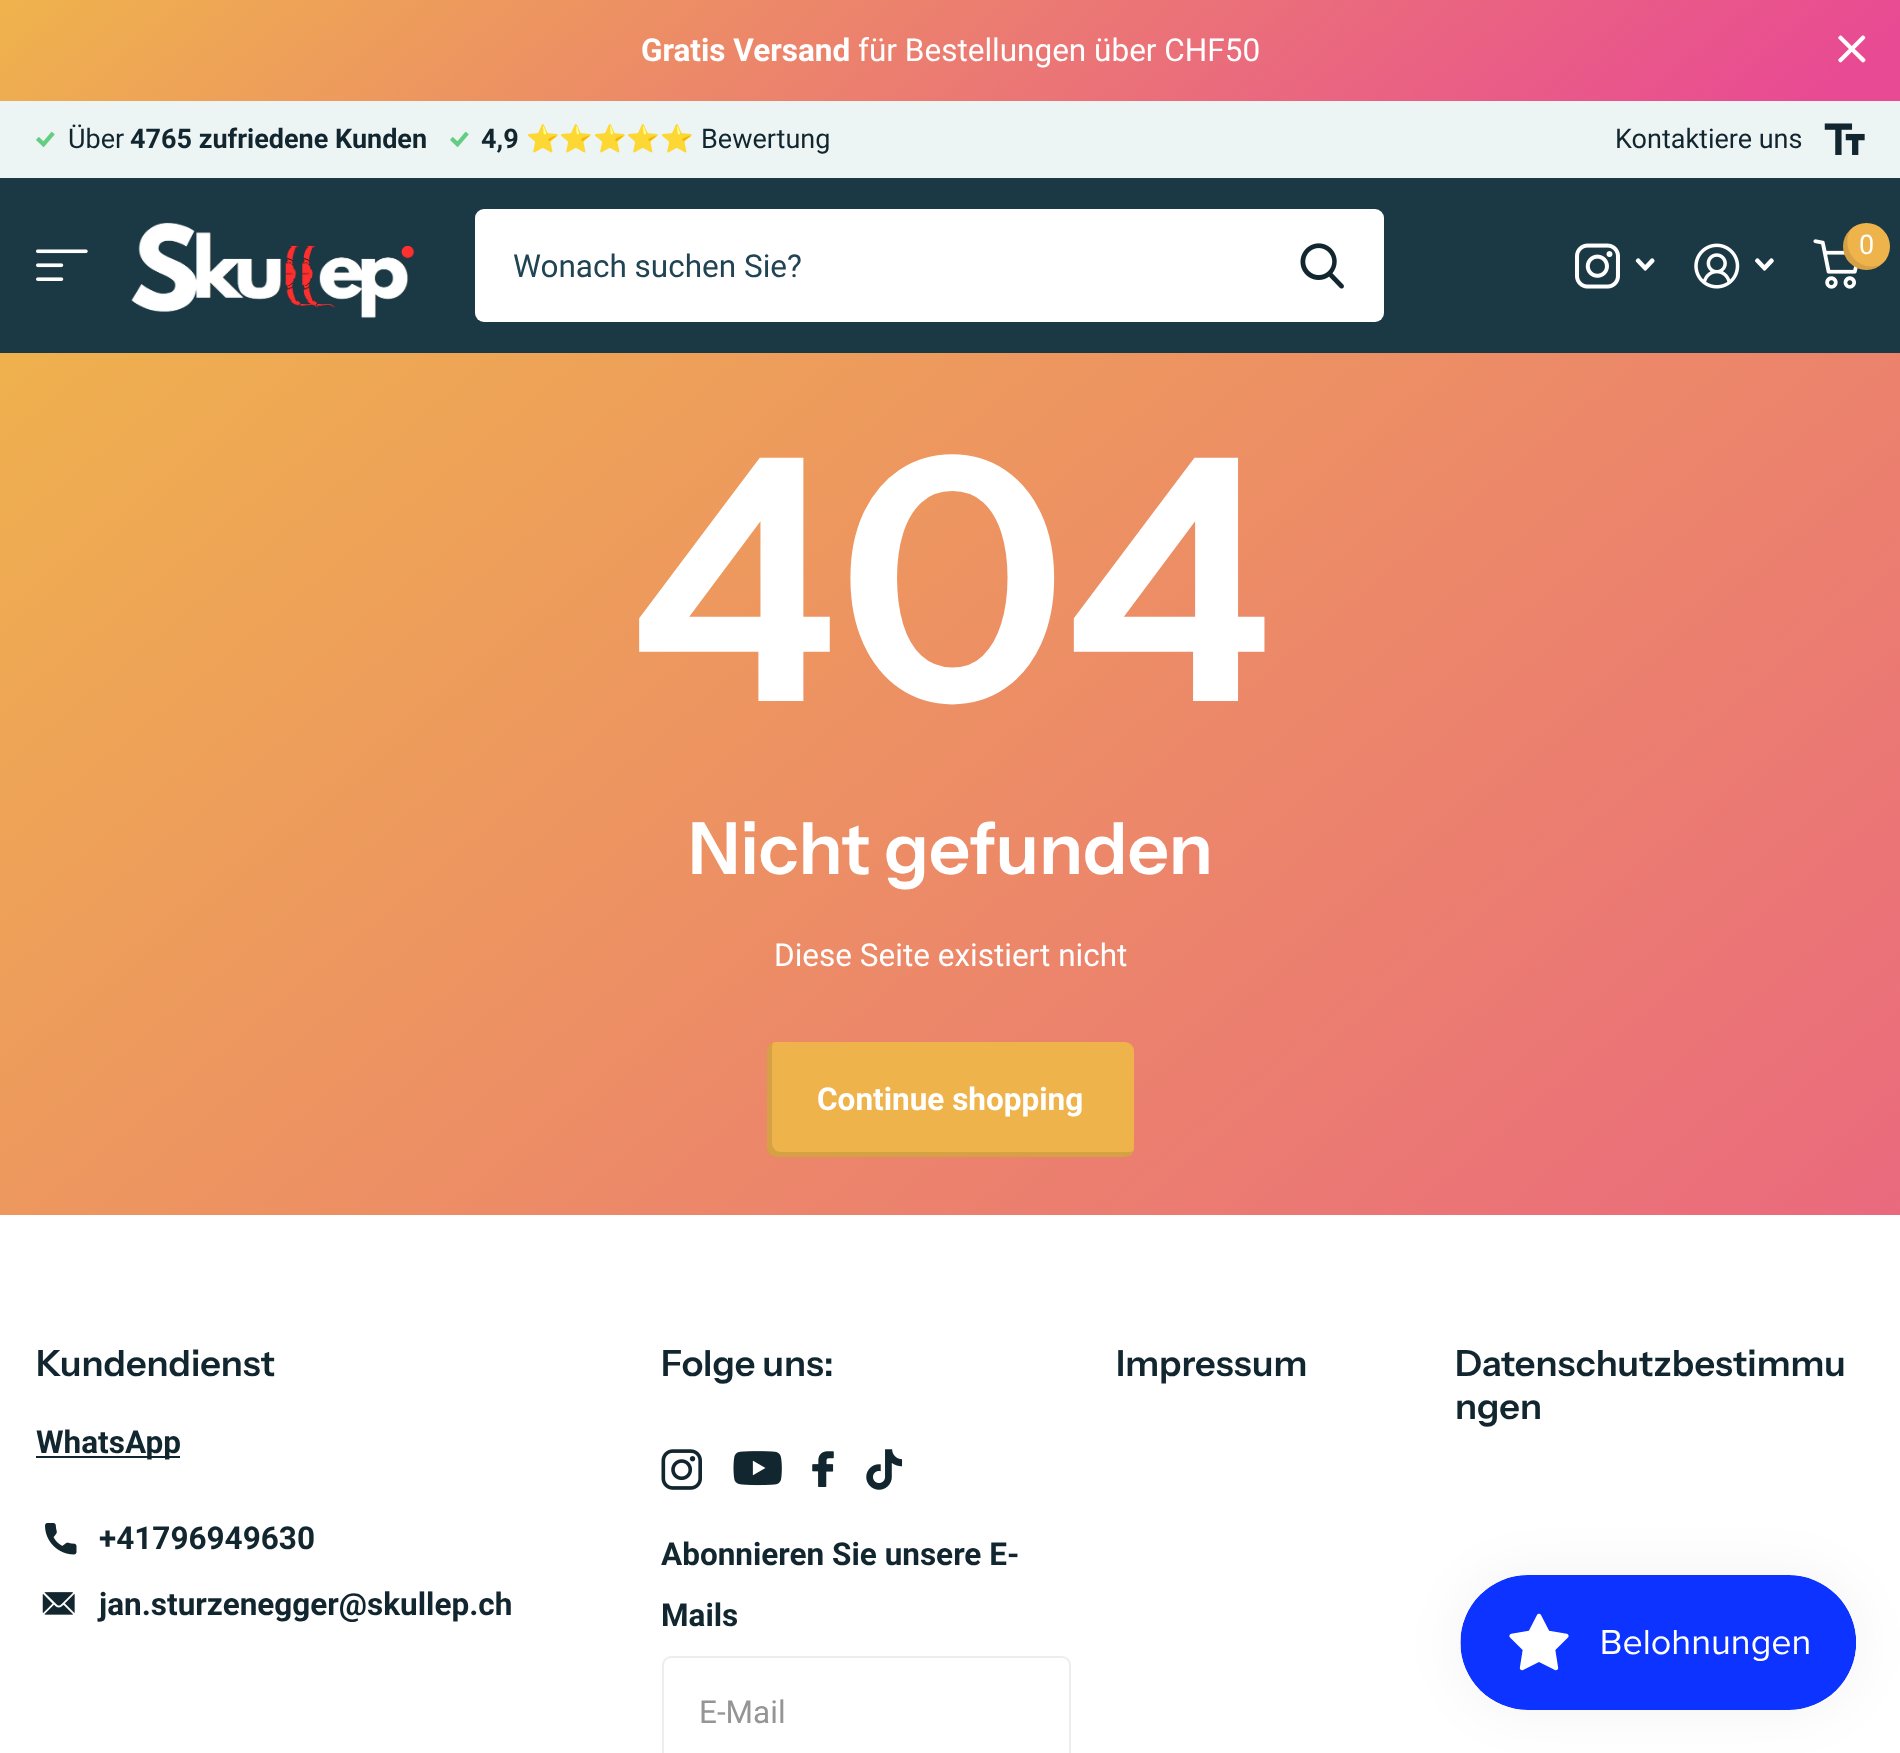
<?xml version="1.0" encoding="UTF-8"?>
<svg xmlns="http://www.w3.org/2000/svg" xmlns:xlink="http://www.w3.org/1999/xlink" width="1900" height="1753">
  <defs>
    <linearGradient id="g1" gradientUnits="userSpaceOnUse" x1="1368" y1="548" x2="533" y2="-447"><stop offset="0.04" stop-color="#e84a93" /><stop offset="1" stop-color="#efb34c" /></linearGradient>
    <linearGradient id="g2" gradientUnits="userSpaceOnUse" x1="1880" y1="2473" x2="21" y2="257"><stop offset="0.04" stop-color="#e84a93" /><stop offset="1" stop-color="#efb34c" /></linearGradient>
  </defs>
  <rect width="100%" height="100%" fill="#ffffff" />
  <rect width="1900" height="101" fill="url(#g1)" />
  <image x="1838" y="35" width="28" height="28" xlink:href="image1.png" />
  <rect y="101" width="1900" height="77" fill="#edf4f4" />
  <image x="36" y="131" width="19" height="17" xlink:href="image2.png" />
  <image x="450" y="131" width="19" height="17" xlink:href="image2.png" />
  <image x="1824" y="123" width="41" height="32" xlink:href="image3.png" />
  <rect y="178" width="1900" height="175" fill="#1a3945" />
  <image x="131" y="222" width="284" height="96" xlink:href="image4.png" />
  <image x="1575" y="243" width="45" height="46" xlink:href="image5.png" />
  <image x="1635" y="258" width="20" height="13" xlink:href="image6.png" />
  <image x="1694" y="243" width="46" height="46" xlink:href="image7.png" />
  <image x="1755" y="258" width="19" height="13" xlink:href="image8.png" />
  <image x="1813" y="239" width="45" height="50" xlink:href="image9.png" />
  <circle cx="1866.5" cy="246.5" r="23.5" fill="#efb34c" />
  <path d="M 1884 263 c -22 13 -46 -12 -33 -34 c -10 8 -11 24 -1 34 c 9 9 25 9 34 0 z" fill="#000000" fill-opacity="0.1" />
  <image x="36" y="249" width="52" height="32" xlink:href="image10.png" />
  <rect x="475" y="209" width="909" height="113" rx="9" fill="#ffffff" />
  <image x="1300" y="243" width="44" height="46" xlink:href="image11.png" />
  <rect y="353" width="1900" height="862" fill="url(#g2)" />
  <rect x="767" y="1042" width="367" height="115" rx="9" fill="#efb34c" />
  <path d="M 773 1043 c -4 1 -6 4 -6 8 v 97 c 0 5 4 9 9 9 h 349 c 4 0 7 -3 8 -6 l -3 1 h -349 c -5 0 -9 -4 -9 -9 v -97 z" fill="#000000" fill-opacity="0.1" />
  <rect x="36" y="1456" width="144" height="2" fill="#12262f" />
  <image x="45" y="1523" width="32" height="32" xlink:href="image12.png" />
  <image x="42" y="1592" width="33" height="23" xlink:href="image13.png" />
  <image x="661" y="1449" width="41" height="41" xlink:href="image14.png" />
  <image x="733" y="1451" width="49" height="35" xlink:href="image15.png" />
  <image x="812" y="1451" width="22" height="36" xlink:href="image16.png" />
  <image x="866" y="1449" width="37" height="41" xlink:href="image17.png" />
  <rect x="663" y="1657" width="407" height="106" rx="8" fill="none" stroke="#eceeee" stroke-width="2" />
  <rect x="1460" y="1575" width="396" height="135" rx="67.5" fill="#000000" fill-opacity="0.05" filter="blur(28px)" />
  <image x="1460" y="1575" width="396" height="135" xlink:href="image18.png" />
  <text x="641" y="61" style="font-family: Roboto; font-size: 31.5px; font-weight: bold; fill: #ffffff">Gratis Versand</text>
  <text x="858" y="61" style="font-family: Roboto; font-size: 31.5px; fill: #ffffff">für Bestellungen über CHF50</text>
  <text x="68" y="148" style="font-family: Roboto; font-size: 27px; fill: #12262f">Über</text>
  <text x="130" y="148" style="font-family: Roboto; font-size: 27px; font-weight: bold; fill: #12262f">4765 zufriedene Kunden</text>
  <text x="481" y="148" style="font-family: Roboto; font-size: 27px; font-weight: bold; fill: #12262f">4,9</text>
  <text x="526" y="148" style="font-family: Noto Color Emoji; font-size: 27px; fill: #12262f">⭐⭐⭐⭐⭐</text>
  <text x="701" y="148" style="font-family: Roboto; font-size: 27px; fill: #12262f">Bewertung</text>
  <text x="1615" y="148" style="font-family: Roboto; font-size: 27px; fill: #12262f">Kontaktiere uns</text>
  <text x="1859" y="254" style="font-family: Roboto; font-size: 27px; fill: #ffffff">0</text>
  <text x="513" y="277" style="font-family: Roboto; font-size: 31.5px; fill: #204454">Wonach suchen Sie?</text>
  <text x="630" y="701" style="font-family: Instrument Sans; font-size: 338px; font-weight: 600; fill: #ffffff">404</text>
  <text x="688" y="874" style="font-family: Instrument Sans; font-size: 72px; font-weight: 600; fill: #ffffff">Nicht gefunden</text>
  <text x="774" y="966" style="font-family: Roboto; font-size: 31.5px; fill: #ffffff">Diese Seite existiert nicht</text>
  <text x="817" y="1110" style="font-family: Roboto; font-size: 31.5px; font-weight: bold; fill: #ffffff">Continue shopping</text>
  <text x="36" y="1376" style="font-family: Instrument Sans; font-size: 36px; font-weight: 600; fill: #12262f">Kundendienst</text>
  <text x="36" y="1453" style="font-family: Roboto; font-size: 31.5px; font-weight: bold; fill: #12262f">WhatsApp</text>
  <text x="99" y="1549" style="font-family: Roboto; font-size: 31.5px; font-weight: bold; fill: #12262f">+41796949630</text>
  <text x="99" y="1615" style="font-family: Roboto; font-size: 31.5px; font-weight: bold; fill: #12262f">jan.sturzenegger@skullep.ch</text>
  <text x="661" y="1376" style="font-family: Instrument Sans; font-size: 36px; font-weight: 600; fill: #12262f">Folge uns:</text>
  <text x="661" y="1565" style="font-family: Roboto; font-size: 31.5px; font-weight: bold; fill: #12262f">Abonnieren Sie unsere E-</text>
  <text x="661" y="1626" style="font-family: Roboto; font-size: 31.5px; font-weight: bold; fill: #12262f">Mails</text>
  <text x="699" y="1723" style="font-family: Roboto; font-size: 31.5px; fill: #959595">E-Mail</text>
  <text x="1116" y="1376" style="font-family: Instrument Sans; font-size: 36px; font-weight: 600; fill: #12262f">Impressum</text>
  <text x="1455" y="1376" style="font-family: Instrument Sans; font-size: 36px; font-weight: 600; fill: #12262f">Datenschutzbestimmu</text>
  <text x="1455" y="1419" style="font-family: Instrument Sans; font-size: 36px; font-weight: 600; fill: #12262f">ngen</text>
</svg>
